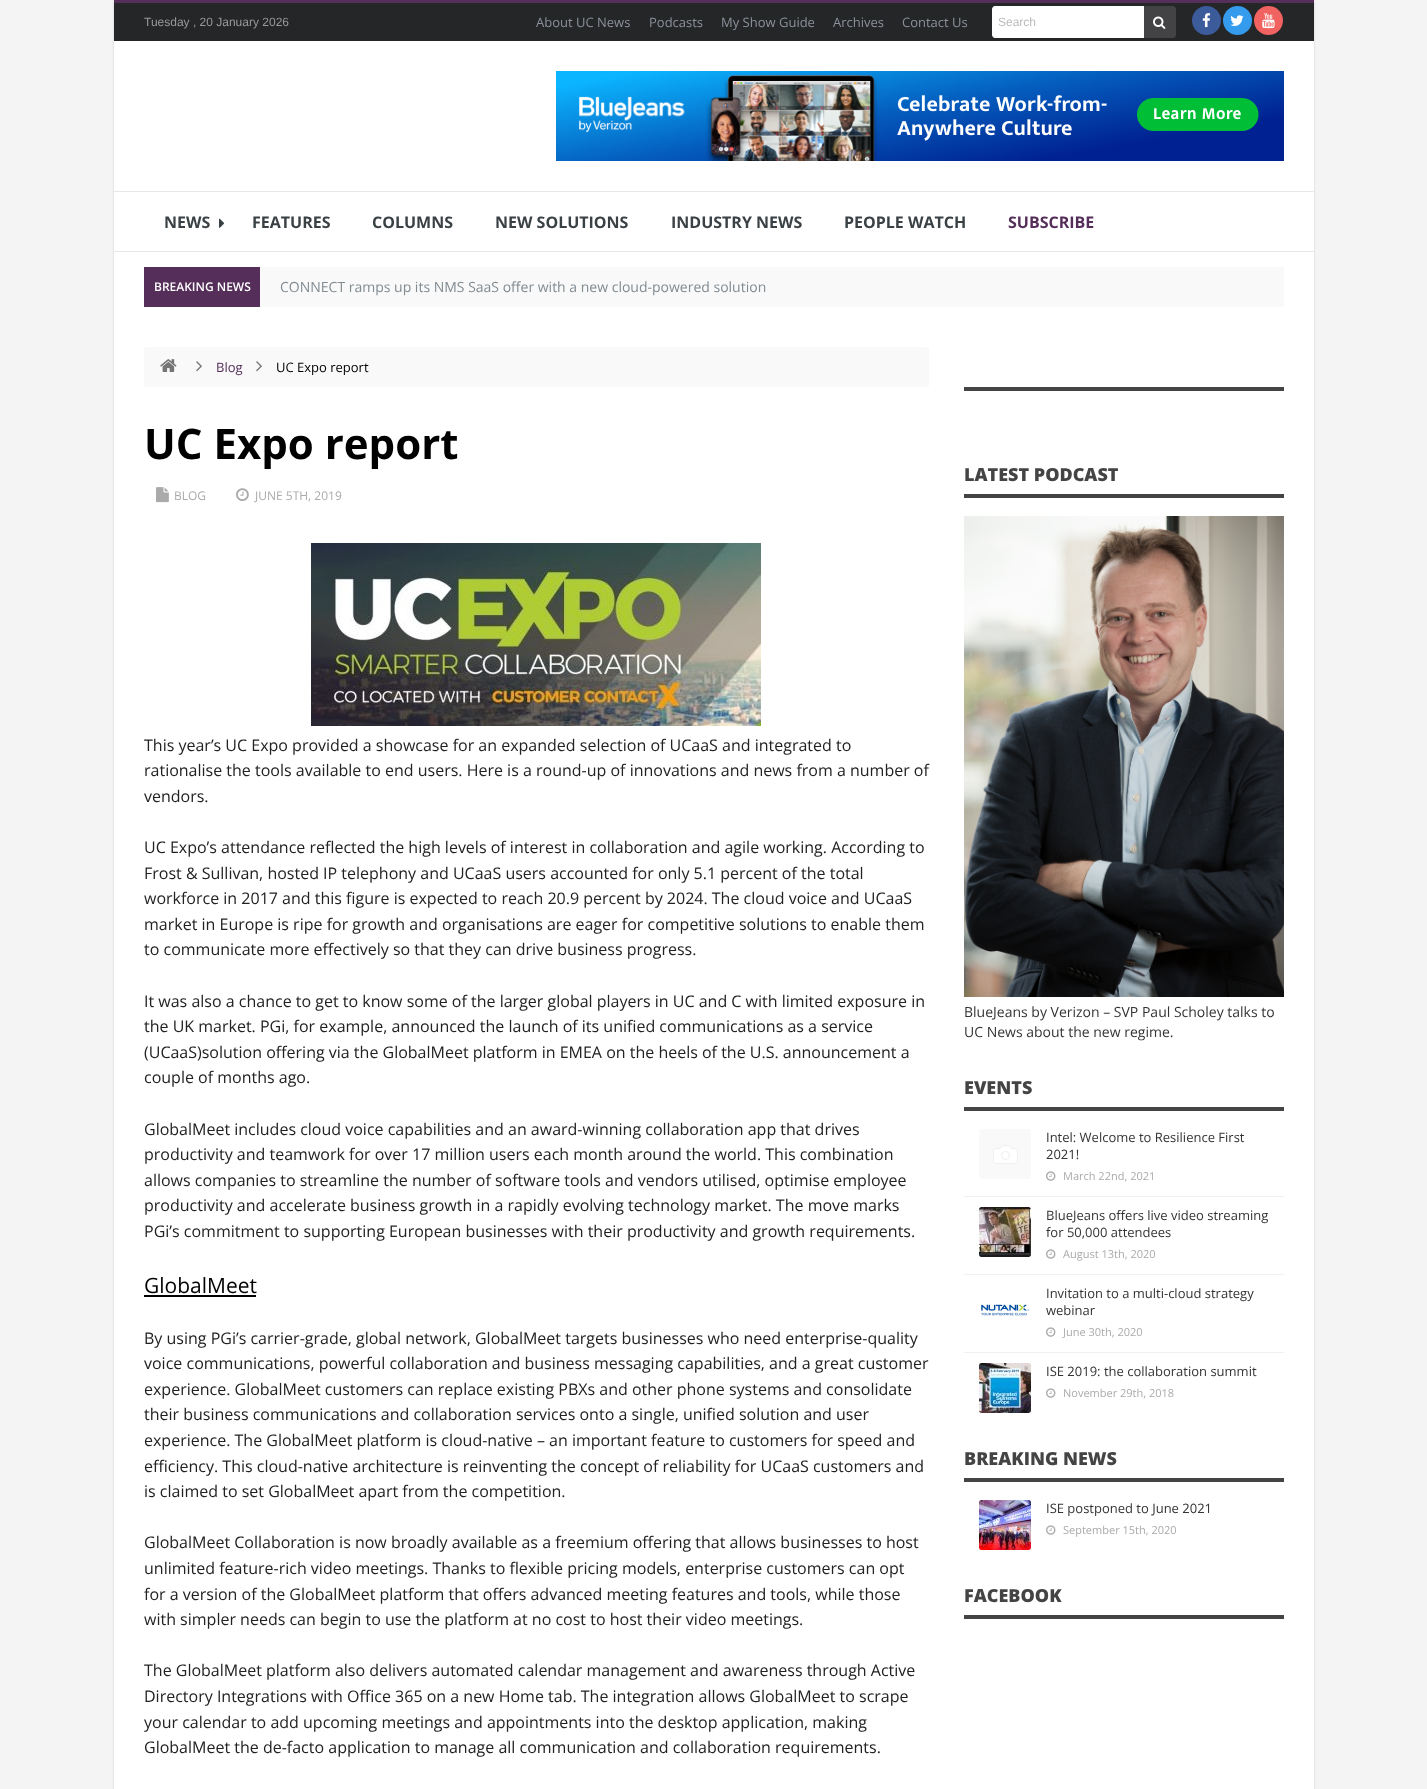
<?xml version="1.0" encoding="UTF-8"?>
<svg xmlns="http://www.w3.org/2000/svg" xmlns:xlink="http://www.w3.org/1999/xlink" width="1427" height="1789">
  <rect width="100%" height="100%" fill="#f4f4f4" />
  <rect x="114" y="1" width="1200" height="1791" fill="#000000" fill-opacity="0.15" filter="blur(1px)" />
  <rect x="114" y="41" width="1200" height="1748" fill="#ffffff" />
  <rect x="114" y="3" width="1200" height="38" fill="#242628" />
  <rect x="114" width="1200" height="3" fill="#552e5a" />
  <path d="M 995 6 h 149 v 32 h -149 c -1.5 0 -3 -1.5 -3 -3 v -26 c 0 -1.5 1.5 -3 3 -3 z" fill="#ffffff" />
  <path d="M 1144 6 h 29 c 1.5 0 3 1.5 3 3 v 26 c 0 1.5 -1.5 3 -3 3 h -29 z" fill="#434345" />
  <image x="1153" y="16" width="13" height="13" xlink:href="image1.png" />
  <circle cx="1206.5" cy="20.5" r="14.5" fill="#3c5b9b" />
  <image x="1202" y="13" width="9" height="15" xlink:href="image2.png" />
  <circle cx="1237.5" cy="20.5" r="14.5" fill="#359bed" />
  <image x="1230" y="15" width="14" height="11" xlink:href="image3.png" />
  <circle cx="1268.5" cy="20.5" r="14.5" fill="#f16361" />
  <image x="1262" y="13" width="13" height="16" xlink:href="image4.png" />
  <image x="556" y="71" width="728" height="90" xlink:href="image5.png" />
  <rect x="114" y="191" width="1200" height="1" fill="#e6e6e6" />
  <rect x="114" y="251" width="1200" height="1" fill="#e6e6e6" />
  <image x="219" y="218" width="6" height="10" xlink:href="image6.png" />
  <rect x="260" y="267" width="1024" height="40" fill="#f9f9f9" />
  <rect x="144" y="267" width="116" height="40" fill="#552e5a" />
  <rect x="144" y="347" width="785" height="40" rx="2" fill="#f9f9f9" />
  <image x="160" y="359" width="17" height="13" xlink:href="image7.png" />
  <image x="196" y="361" width="6" height="11" xlink:href="image8.png" />
  <image x="256" y="361" width="6" height="11" xlink:href="image8.png" />
  <image x="156" y="487" width="13" height="16" xlink:href="image9.png" />
  <image x="236" y="488" width="13" height="13" xlink:href="image10.png" />
  <image x="311" y="543" width="450" height="183" xlink:href="image11.png" />
  <rect x="144" y="1295" width="112" height="2" fill="#000000" />
  <rect x="964" y="387" width="320" height="4" fill="#444444" />
  <rect x="964" y="494" width="320" height="4" fill="#444444" />
  <image x="964" y="516" width="320" height="481" xlink:href="image12.png" />
  <rect x="964" y="1107" width="320" height="4" fill="#444444" />
  <rect x="964" y="1196" width="320" height="1" fill="#f0f0f0" />
  <image x="979" y="1129" width="52" height="50" xlink:href="image13.png" />
  <image x="1046" y="1171" width="10" height="10" xlink:href="image14.png" />
  <rect x="964" y="1274" width="320" height="1" fill="#f0f0f0" />
  <image x="979" y="1207" width="52" height="50" xlink:href="image15.png" />
  <image x="1046" y="1249" width="10" height="10" xlink:href="image14.png" />
  <rect x="964" y="1352" width="320" height="1" fill="#f0f0f0" />
  <image x="981" y="1304" width="48" height="12" xlink:href="image16.png" />
  <image x="1046" y="1327" width="10" height="10" xlink:href="image14.png" />
  <image x="979" y="1363" width="52" height="50" xlink:href="image17.png" />
  <image x="1046" y="1388" width="10" height="10" xlink:href="image14.png" />
  <rect x="964" y="1478" width="320" height="4" fill="#444444" />
  <image x="979" y="1500" width="52" height="50" xlink:href="image18.png" />
  <image x="1046" y="1525" width="10" height="10" xlink:href="image14.png" />
  <rect x="964" y="1615" width="320" height="4" fill="#444444" />
  <text x="144" y="26" style="font-family: Liberation Sans; font-size: 12px; fill: #999999">Tuesday , 20 January 2026</text>
  <text x="536" y="27" style="font-family: Open Sans; font-size: 13px; fill: #8c919b">About UC News</text>
  <text x="649" y="27" style="font-family: Open Sans; font-size: 13px; fill: #8c919b">Podcasts</text>
  <text x="721" y="27" style="font-family: Open Sans; font-size: 13px; fill: #8c919b">My Show Guide</text>
  <text x="833" y="27" style="font-family: Open Sans; font-size: 13px; fill: #8c919b">Archives</text>
  <text x="902" y="27" style="font-family: Open Sans; font-size: 13px; fill: #8c919b">Contact Us</text>
  <text x="998" y="26" style="font-family: Liberation Sans; font-size: 12px; fill: #bbbbbb">Search</text>
  <text x="164" y="228" style="font-family: Open Sans; font-size: 16px; font-weight: bold; fill: #3a4145">NEWS</text>
  <text x="252" y="228" style="font-family: Open Sans; font-size: 16px; font-weight: bold; fill: #3a4145">FEATURES</text>
  <text x="372" y="228" style="font-family: Open Sans; font-size: 16px; font-weight: bold; fill: #3a4145">COLUMNS</text>
  <text x="495" y="228" style="font-family: Open Sans; font-size: 16px; font-weight: bold; fill: #3a4145">NEW SOLUTIONS</text>
  <text x="671" y="228" style="font-family: Open Sans; font-size: 16px; font-weight: bold; fill: #3a4145">INDUSTRY NEWS</text>
  <text x="844" y="228" style="font-family: Open Sans; font-size: 16px; font-weight: bold; fill: #3a4145">PEOPLE WATCH</text>
  <text x="1008" y="228" style="font-family: Open Sans; font-size: 16px; font-weight: bold; fill: #552e5a">SUBSCRIBE</text>
  <text x="154" y="291" style="font-family: Open Sans; font-size: 12px; font-weight: 600; fill: #ffffff">BREAKING NEWS</text>
  <text x="280" y="292" style="font-family: Open Sans; font-size: 14px; fill: #818b92">CONNECT ramps up its NMS SaaS offer with a new cloud-powered solution</text>
  <text x="216" y="372" style="font-family: Open Sans; font-size: 13px; fill: #552e5a">Blog</text>
  <text x="276" y="372" style="font-family: Open Sans; font-size: 13px; fill: #000000">UC Expo report</text>
  <text x="144" y="459" style="font-family: Open Sans; font-size: 42px; font-weight: bold; fill: #000000">UC Expo report</text>
  <text x="174" y="500" style="font-family: Open Sans; font-size: 12px; fill: #aaaaaa">BLOG</text>
  <text x="255" y="500" style="font-family: Open Sans; font-size: 12px; fill: #aaaaaa">JUNE 5TH, 2019</text>
  <text x="144" y="751" style="font-family: Open Sans; font-size: 16px; fill: #222222">This year’s UC Expo provided a showcase for an expanded selection of UCaaS and integrated to</text>
  <text x="144" y="776" style="font-family: Open Sans; font-size: 16px; fill: #222222">rationalise the tools available to end users. Here is a round-up of innovations and news from a number of</text>
  <text x="144" y="802" style="font-family: Open Sans; font-size: 16px; fill: #222222">vendors.</text>
  <text x="144" y="853" style="font-family: Open Sans; font-size: 16px; fill: #222222">UC Expo’s attendance reflected the high levels of interest in collaboration and agile working. According to</text>
  <text x="144" y="879" style="font-family: Open Sans; font-size: 16px; fill: #222222">Frost &amp; Sullivan, hosted IP telephony and UCaaS users accounted for only 5.1 percent of the total</text>
  <text x="144" y="904" style="font-family: Open Sans; font-size: 16px; fill: #222222">workforce in 2017 and this figure is expected to reach 20.9 percent by 2024. The cloud voice and UCaaS</text>
  <text x="144" y="930" style="font-family: Open Sans; font-size: 16px; fill: #222222">market in Europe is ripe for growth and organisations are eager for competitive solutions to enable them</text>
  <text x="144" y="955" style="font-family: Open Sans; font-size: 16px; fill: #222222">to communicate more effectively so that they can drive business progress.</text>
  <text x="144" y="1007" style="font-family: Open Sans; font-size: 16px; fill: #222222">It was also a chance to get to know some of the larger global players in UC and C with limited exposure in</text>
  <text x="144" y="1032" style="font-family: Open Sans; font-size: 16px; fill: #222222">the UK market. PGi, for example, announced the launch of its unified communications as a service</text>
  <text x="144" y="1058" style="font-family: Open Sans; font-size: 16px; fill: #222222">(UCaaS)solution offering via the GlobalMeet platform in EMEA on the heels of the U.S. announcement a</text>
  <text x="144" y="1083" style="font-family: Open Sans; font-size: 16px; fill: #222222">couple of months ago.</text>
  <text x="144" y="1135" style="font-family: Open Sans; font-size: 16px; fill: #222222">GlobalMeet includes cloud voice capabilities and an award-winning collaboration app that drives</text>
  <text x="144" y="1160" style="font-family: Open Sans; font-size: 16px; fill: #222222">productivity and teamwork for over 17 million users each month around the world. This combination</text>
  <text x="144" y="1186" style="font-family: Open Sans; font-size: 16px; fill: #222222">allows companies to streamline the number of software tools and vendors utilised, optimise employee</text>
  <text x="144" y="1211" style="font-family: Open Sans; font-size: 16px; fill: #222222">productivity and accelerate business growth in a rapidly evolving technology market. The move marks</text>
  <text x="144" y="1237" style="font-family: Open Sans; font-size: 16px; fill: #222222">PGi’s commitment to supporting European businesses with their productivity and growth requirements.</text>
  <text x="144" y="1293" style="font-family: Open Sans; font-size: 21px; fill: #000000">GlobalMeet</text>
  <text x="144" y="1344" style="font-family: Open Sans; font-size: 16px; fill: #222222">By using PGi’s carrier-grade, global network, GlobalMeet targets businesses who need enterprise-quality</text>
  <text x="144" y="1369" style="font-family: Open Sans; font-size: 16px; fill: #222222">voice communications, powerful collaboration and business messaging capabilities, and a great customer</text>
  <text x="144" y="1395" style="font-family: Open Sans; font-size: 16px; fill: #222222">experience. GlobalMeet customers can replace existing PBXs and other phone systems and consolidate</text>
  <text x="144" y="1420" style="font-family: Open Sans; font-size: 16px; fill: #222222">their business communications and collaboration services onto a single, unified solution and user</text>
  <text x="144" y="1446" style="font-family: Open Sans; font-size: 16px; fill: #222222">experience. The GlobalMeet platform is cloud-native – an important feature to customers for speed and</text>
  <text x="144" y="1472" style="font-family: Open Sans; font-size: 16px; fill: #222222">efficiency. This cloud-native architecture is reinventing the concept of reliability for UCaaS customers and</text>
  <text x="144" y="1497" style="font-family: Open Sans; font-size: 16px; fill: #222222">is claimed to set GlobalMeet apart from the competition.</text>
  <text x="144" y="1548" style="font-family: Open Sans; font-size: 16px; fill: #222222">GlobalMeet Collaboration is now broadly available as a freemium offering that allows businesses to host</text>
  <text x="144" y="1574" style="font-family: Open Sans; font-size: 16px; fill: #222222">unlimited feature-rich video meetings. Thanks to flexible pricing models, enterprise customers can opt</text>
  <text x="144" y="1600" style="font-family: Open Sans; font-size: 16px; fill: #222222">for a version of the GlobalMeet platform that offers advanced meeting features and tools, while those</text>
  <text x="144" y="1625" style="font-family: Open Sans; font-size: 16px; fill: #222222">with simpler needs can begin to use the platform at no cost to host their video meetings.</text>
  <text x="144" y="1676" style="font-family: Open Sans; font-size: 16px; fill: #222222">The GlobalMeet platform also delivers automated calendar management and awareness through Active</text>
  <text x="144" y="1702" style="font-family: Open Sans; font-size: 16px; fill: #222222">Directory Integrations with Office 365 on a new Home tab. The integration allows GlobalMeet to scrape</text>
  <text x="144" y="1728" style="font-family: Open Sans; font-size: 16px; fill: #222222">your calendar to add upcoming meetings and appointments into the desktop application, making</text>
  <text x="144" y="1753" style="font-family: Open Sans; font-size: 16px; fill: #222222">GlobalMeet the de-facto application to manage all communication and collaboration requirements.</text>
  <text x="964" y="481" style="font-family: Open Sans; font-size: 18px; font-weight: 800; fill: #444444">LATEST PODCAST</text>
  <text x="964" y="1017" style="font-family: Open Sans; font-size: 14px; fill: #343434">BlueJeans by Verizon – SVP Paul Scholey talks to</text>
  <text x="964" y="1037" style="font-family: Open Sans; font-size: 14px; fill: #343434">UC News about the new regime.</text>
  <text x="964" y="1094" style="font-family: Open Sans; font-size: 18px; font-weight: 800; fill: #444444">EVENTS</text>
  <text x="1046" y="1142" style="font-family: Open Sans; font-size: 13px; fill: #343434">Intel: Welcome to Resilience First</text>
  <text x="1046" y="1159" style="font-family: Open Sans; font-size: 13px; fill: #343434">2021!</text>
  <text x="1063" y="1180" style="font-family: Open Sans; font-size: 11px; fill: #aaaaaa">March 22nd, 2021</text>
  <text x="1046" y="1220" style="font-family: Open Sans; font-size: 13px; fill: #343434">BlueJeans offers live video streaming</text>
  <text x="1046" y="1237" style="font-family: Open Sans; font-size: 13px; fill: #343434">for 50,000 attendees</text>
  <text x="1063" y="1258" style="font-family: Open Sans; font-size: 11px; fill: #aaaaaa">August 13th, 2020</text>
  <text x="1046" y="1298" style="font-family: Open Sans; font-size: 13px; fill: #343434">Invitation to a multi-cloud strategy</text>
  <text x="1046" y="1315" style="font-family: Open Sans; font-size: 13px; fill: #343434">webinar</text>
  <text x="1063" y="1336" style="font-family: Open Sans; font-size: 11px; fill: #aaaaaa">June 30th, 2020</text>
  <text x="1046" y="1376" style="font-family: Open Sans; font-size: 13px; fill: #343434">ISE 2019: the collaboration summit</text>
  <text x="1063" y="1397" style="font-family: Open Sans; font-size: 11px; fill: #aaaaaa">November 29th, 2018</text>
  <text x="964" y="1465" style="font-family: Open Sans; font-size: 18px; font-weight: 800; fill: #444444">BREAKING NEWS</text>
  <text x="1046" y="1513" style="font-family: Open Sans; font-size: 13px; fill: #343434">ISE postponed to June 2021</text>
  <text x="1063" y="1534" style="font-family: Open Sans; font-size: 11px; fill: #aaaaaa">September 15th, 2020</text>
  <text x="964" y="1602" style="font-family: Open Sans; font-size: 18px; font-weight: 800; fill: #444444">FACEBOOK</text>
</svg>
